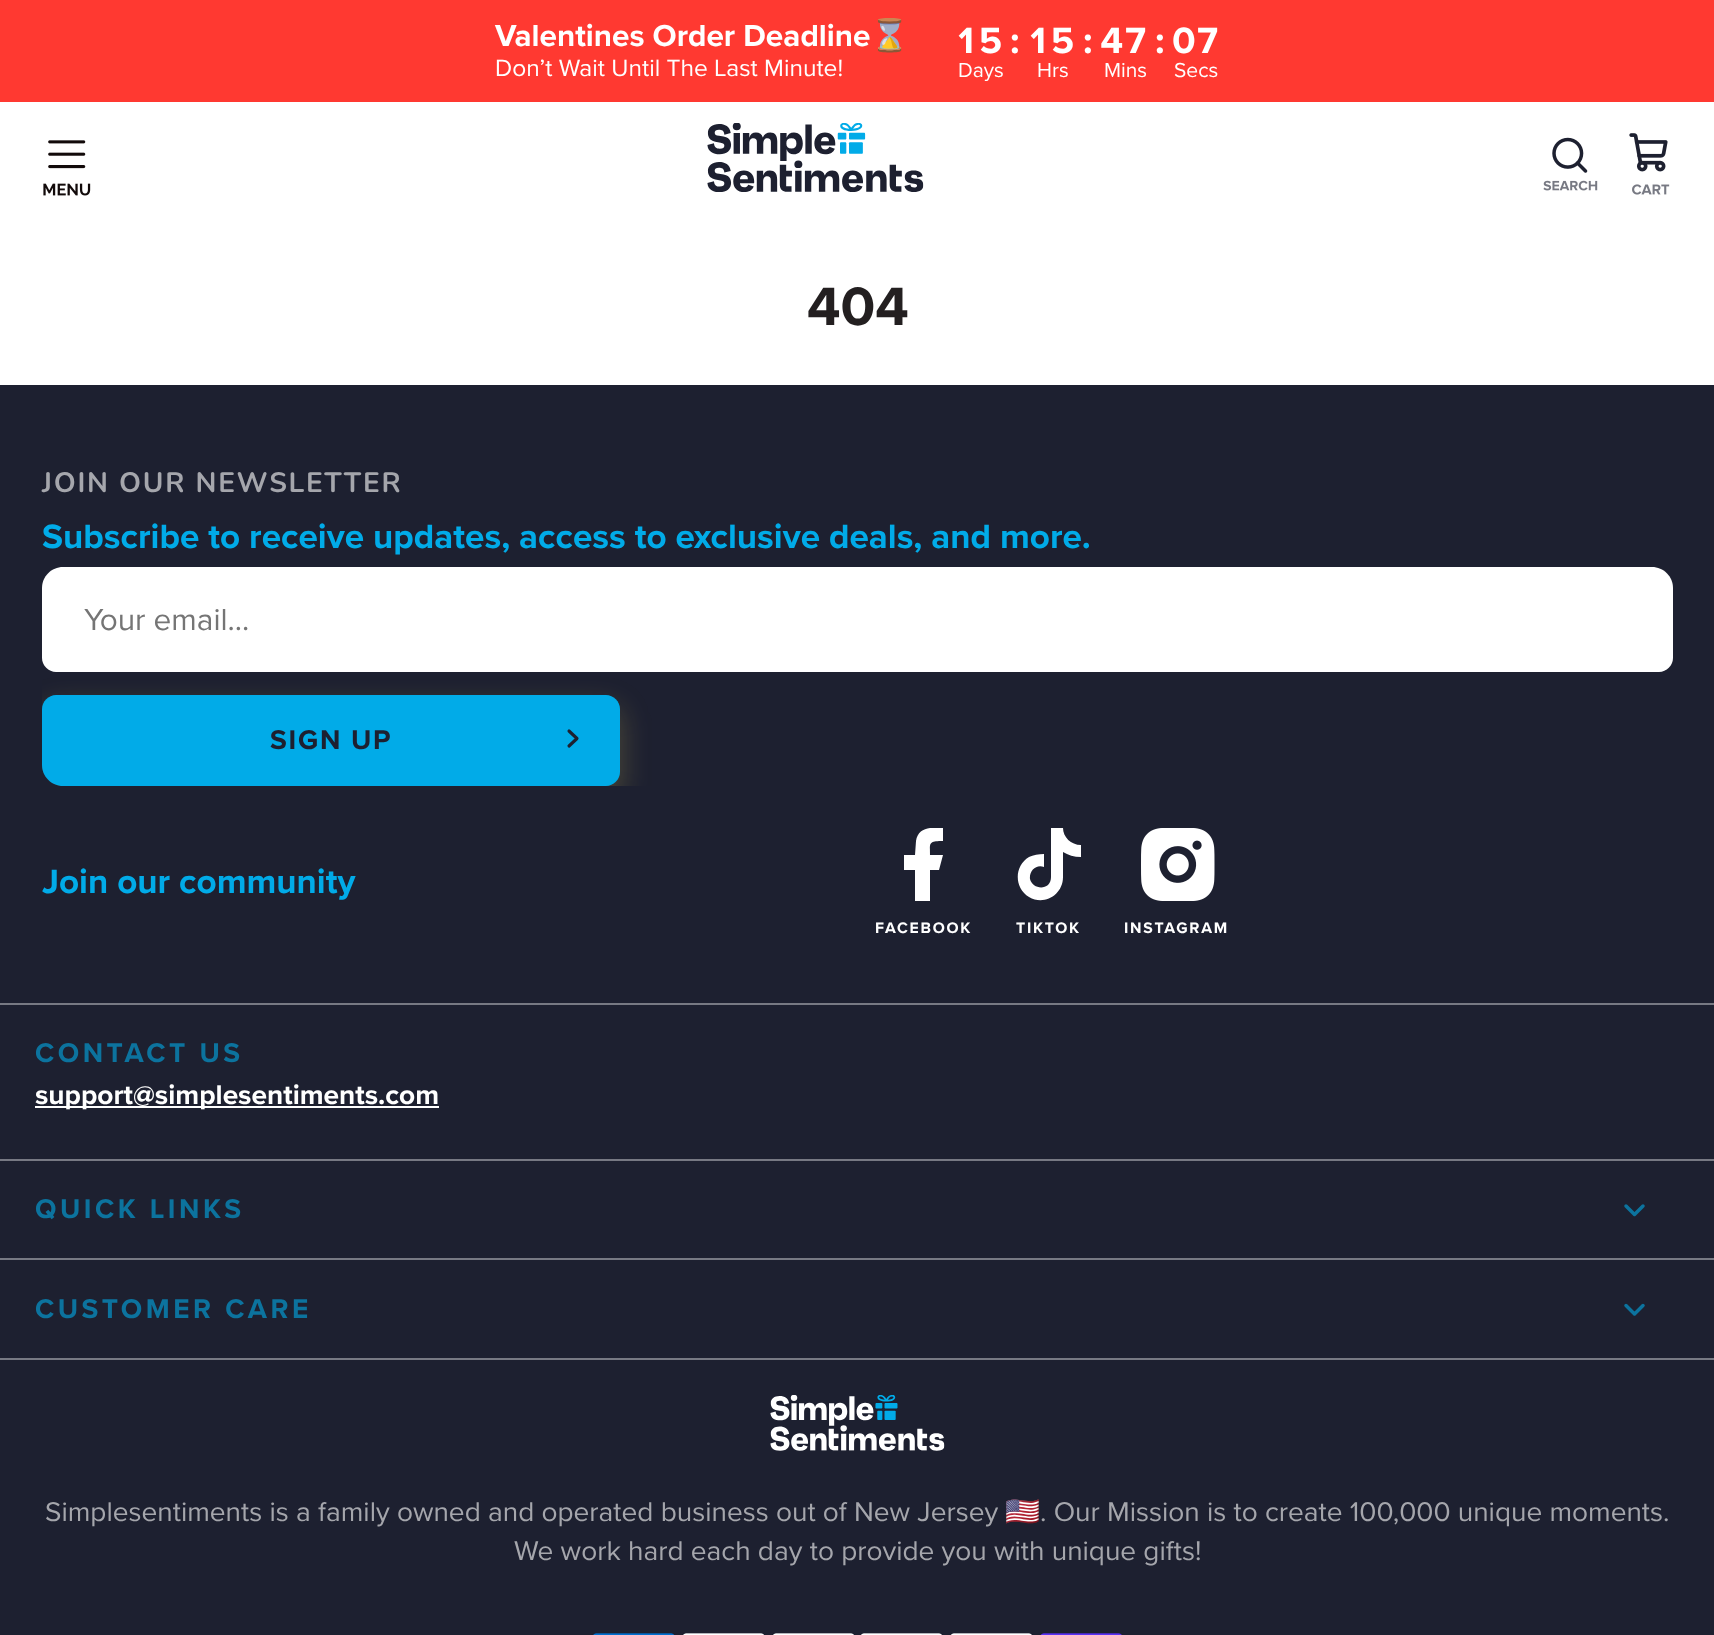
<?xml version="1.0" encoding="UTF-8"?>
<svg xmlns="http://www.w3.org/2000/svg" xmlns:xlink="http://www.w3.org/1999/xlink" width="1714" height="1635">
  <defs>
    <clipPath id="clip1"><rect x="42" y="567" width="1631" height="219" rx="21" /></clipPath>
    <clipPath id="clip2"><rect x="875" y="828" width="98" height="73" /></clipPath>
  </defs>
  <rect width="100%" height="100%" fill="#ffffff" />
  <rect width="1714" height="102" fill="#ff3931" />
  <image x="43" y="140" width="48" height="56" xlink:href="image1.png" />
  <image x="707" y="123" width="217" height="69" xlink:href="image2.png" />
  <image x="1543" y="137" width="55" height="54" xlink:href="image3.png" />
  <image x="1629" y="133" width="41" height="62" xlink:href="image4.png" />
  <rect y="385" width="1714" height="1250" fill="#1d2030" />
  <path d="M 63 567 h 1589 c 11.5 0 21 9.5 21 21 v 70 c 0 7.5 -6.5 14 -14 14 h -1603 c -7.5 0 -14 -6.5 -14 -14 v -70 c 0 -11.5 9.5 -21 21 -21 z" fill="#ffffff" />
  <g clip-path="url(#clip1)">
    <rect x="39" y="705" width="584" height="98" rx="18" fill="#f6dc5b" fill-opacity="0.2" filter="blur(14px)" />
  </g>
  <path d="M 56 695 h 550 c 7.5 0 14 6.5 14 14 v 63 c 0 7.5 -6.5 14 -14 14 h -543 c -11.5 0 -21 -9.5 -21 -21 v -56 c 0 -7.5 6.5 -14 14 -14 z" fill="#01abe8" />
  <path d="M 569 731 l 8 7.5 l -8 7.5" fill="none" stroke="#1d2030" stroke-width="3.1" stroke-linecap="round" stroke-linejoin="round" />
  <g clip-path="url(#clip2)">
    <path d="M 930 870 h 9 l 4 -15 h -13 c 0 -12 -2 -14 13 -14 v -13 c -11 -1 -25 -1 -27 13 l -1 14 h -11 v 15 h 11 v 31 h 15 z" fill="#ffffff" />
  </g>
  <path d="M 1081 857 c -7 0 -13 -2 -18 -5 v 25 c 0 18 -19 29 -34 20 c -15 -9 -15 -31 0 -40 c 4 -2 10 -3 15 -3 v 13 c -8 -3 -15 4 -14 12 c 2 8 12 11 18 6 c 2 -2 3 -5 3 -8 v -49 h 12 c 0 9 8 17 18 17 z" fill="#ffffff" />
  <image x="1141" y="828" width="74" height="73" xlink:href="image5.png" />
  <rect y="1003" width="1714" height="2" fill="#777983" />
  <rect x="35" y="1106" width="404" height="2" fill="#ffffff" />
  <rect y="1159" width="1714" height="2" fill="#777983" />
  <rect y="1258" width="1714" height="2" fill="#777983" />
  <path d="M 1643 1206 l -8.5 8.5 l -8.5 -8.5" fill="none" stroke="#0c739e" stroke-width="3.5" stroke-linecap="round" stroke-linejoin="round" />
  <rect y="1358" width="1714" height="2" fill="#777983" />
  <path d="M 1643 1305.5 l -8.5 8.5 l -8.5 -8.5" fill="none" stroke="#0c739e" stroke-width="3.5" stroke-linecap="round" stroke-linejoin="round" />
  <image x="770" y="1395" width="175" height="56" xlink:href="image6.png" />
  <image x="593" y="1633" width="82" height="2" xlink:href="image7.png" />
  <image x="683" y="1633" width="81" height="2" xlink:href="image8.png" />
  <image x="773" y="1633" width="81" height="2" xlink:href="image9.png" />
  <image x="861" y="1633" width="81" height="2" xlink:href="image10.png" />
  <image x="950" y="1633" width="82" height="2" xlink:href="image11.png" />
  <image x="1040" y="1633" width="82" height="2" xlink:href="image12.png" />
  <text x="495" y="46" style="font-family: Proxima Nova; font-size: 31.5px; font-weight: bold; fill: #ffffff">Valentines Order Deadline</text>
  <text x="870" y="46" style="font-family: Noto Color Emoji; font-size: 31.5px; font-weight: bold; fill: #ffffff">⌛</text>
  <text x="495" y="76" style="font-family: Proxima Nova; font-size: 24.5px; fill: #ffffff">Don’t Wait Until The Last Minute!</text>
  <text x="955" y="53" style="font-family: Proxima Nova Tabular; font-size: 38px; font-weight: bold; fill: #ffffff">15</text>
  <text x="1010" y="53" style="font-family: Proxima Nova; font-size: 38px; font-weight: bold; fill: #ffffff">:</text>
  <text x="1027" y="53" style="font-family: Proxima Nova Tabular; font-size: 38px; font-weight: bold; fill: #ffffff">15</text>
  <text x="1083" y="53" style="font-family: Proxima Nova; font-size: 38px; font-weight: bold; fill: #ffffff">:</text>
  <text x="1100" y="53" style="font-family: Proxima Nova Tabular; font-size: 38px; font-weight: bold; fill: #ffffff">47</text>
  <text x="1155" y="53" style="font-family: Proxima Nova; font-size: 38px; font-weight: bold; fill: #ffffff">:</text>
  <text x="1172" y="53" style="font-family: Proxima Nova Tabular; font-size: 38px; font-weight: bold; fill: #ffffff">07</text>
  <text x="958" y="77" style="font-family: Proxima Nova; font-size: 21px; fill: #ffffff">Days</text>
  <text x="1037" y="77" style="font-family: Proxima Nova; font-size: 21px; fill: #ffffff">Hrs</text>
  <text x="1104" y="77" style="font-family: Proxima Nova; font-size: 21px; fill: #ffffff">Mins</text>
  <text x="1174" y="77" style="font-family: Proxima Nova; font-size: 21px; fill: #ffffff">Secs</text>
  <text x="807" y="325" style="font-family: Proxima Nova; font-size: 56px; font-weight: bold; fill: #231f20">404</text>
  <text x="42" y="492" style="font-family: Nunito; font-size: 28px; font-weight: bold; letter-spacing: 1.75px; fill: #a5a6ac">JOIN OUR NEWSLETTER</text>
  <text x="42" y="548" style="font-family: Proxima Nova; font-size: 35px; font-weight: bold; fill: #01abe8">Subscribe to receive updates, access to exclusive deals, and more.</text>
  <text x="84" y="630" style="font-family: Proxima Nova; font-size: 31.5px; fill: #757575">Your email...</text>
  <text x="270" y="749" style="font-family: Proxima Nova; font-size: 28px; font-weight: bold; letter-spacing: 1.75px; fill: #1d2030">SIGN UP</text>
  <text x="42" y="893" style="font-family: Proxima Nova; font-size: 35px; font-weight: bold; fill: #01abe8">Join our community</text>
  <text x="875" y="933" style="font-family: Proxima Nova; font-size: 15.75px; font-weight: bold; letter-spacing: 1.75px; fill: #ffffff">FACEBOOK</text>
  <text x="1016" y="933" style="font-family: Proxima Nova; font-size: 15.75px; font-weight: bold; letter-spacing: 1.75px; fill: #ffffff">TIKTOK</text>
  <text x="1124" y="933" style="font-family: Proxima Nova; font-size: 15.75px; font-weight: bold; letter-spacing: 1.75px; fill: #ffffff">INSTAGRAM</text>
  <text x="35" y="1062" style="font-family: Proxima Nova; font-size: 28px; font-weight: bold; letter-spacing: 3.5px; fill: #0c739e">CONTACT US</text>
  <text x="35" y="1104" style="font-family: Proxima Nova; font-size: 28px; font-weight: bold; fill: #ffffff">support@simplesentiments.com</text>
  <text x="35" y="1218" style="font-family: Proxima Nova; font-size: 28px; font-weight: bold; letter-spacing: 3.5px; fill: #0c739e">QUICK LINKS</text>
  <text x="35" y="1318" style="font-family: Proxima Nova; font-size: 28px; font-weight: bold; letter-spacing: 3.5px; fill: #0c739e">CUSTOMER CARE</text>
  <text x="45" y="1521" style="font-family: Proxima Nova; font-size: 28px; fill: #a5a6ac">Simplesentiments is a family owned and operated business out of New Jersey</text>
  <text x="1005" y="1521" style="font-family: Noto Color Emoji; font-size: 28px; fill: #a5a6ac">🇺🇸</text>
  <text x="1040" y="1521" style="font-family: Proxima Nova; font-size: 28px; fill: #a5a6ac">. Our Mission is to create 100,000 unique moments.</text>
  <text x="514" y="1560" style="font-family: Proxima Nova; font-size: 28px; fill: #a5a6ac">We work hard each day to provide you with unique gifts!</text>
</svg>
